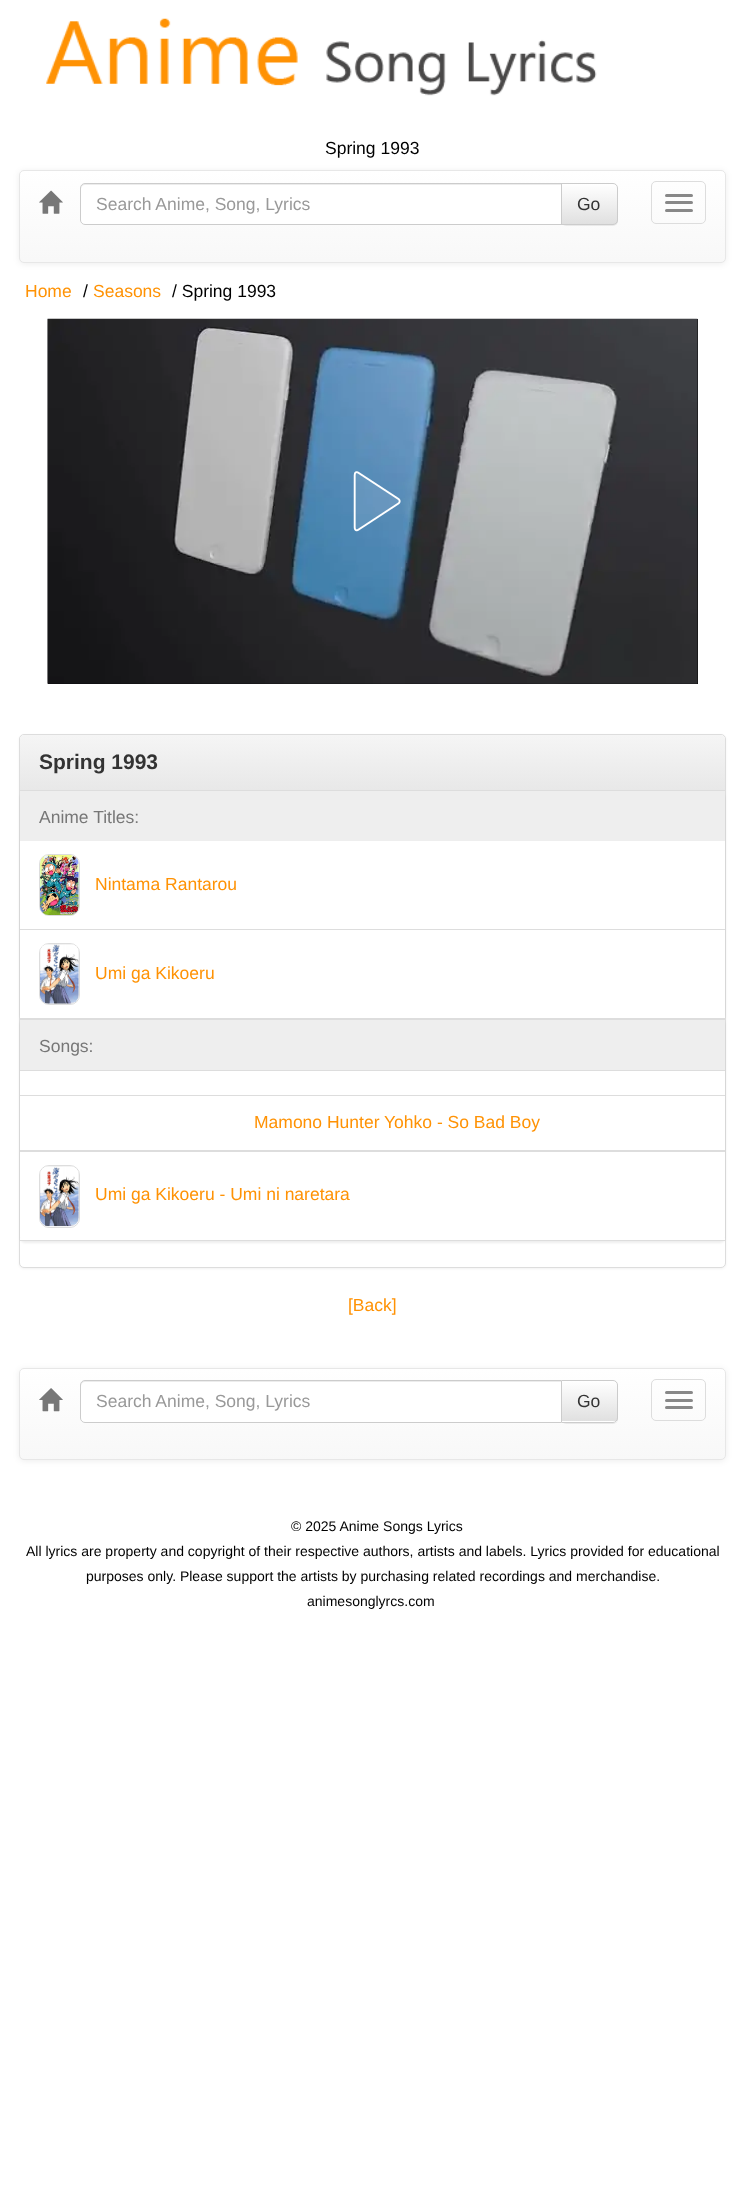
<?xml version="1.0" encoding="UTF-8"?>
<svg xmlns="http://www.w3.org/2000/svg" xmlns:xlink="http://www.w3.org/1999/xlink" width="744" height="2195">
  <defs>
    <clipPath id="clip1"><rect x="19" y="170" width="707" height="93" rx="5" /></clipPath>
    <linearGradient id="g1" gradientUnits="userSpaceOnUse" x1="373" y1="171" x2="373" y2="261"><stop offset="0" stop-color="#ffffff" /><stop offset="1" stop-color="#f8f8f8" /></linearGradient>
    <clipPath id="clip2"><path d="M 561 183 h 52 c 3 0 5 2 5 5 v 32 c 0 3 -2 5 -5 5 h -52 z" /></clipPath>
    <linearGradient id="g2" gradientUnits="userSpaceOnUse" x1="589" y1="184" x2="589" y2="224"><stop offset="0" stop-color="#ffffff" /><stop offset="1" stop-color="#e0e0e0" /></linearGradient>
    <linearGradient id="g3" gradientUnits="userSpaceOnUse" x1="373" y1="735" x2="373" y2="790"><stop offset="0" stop-color="#f5f5f5" /><stop offset="1" stop-color="#e8e8e8" /></linearGradient>
    <clipPath id="clip3"><path d="M 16 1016 h 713 v 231 h -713 z m 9 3 h 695 c 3 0 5 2 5 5 v 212 c 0 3 -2 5 -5 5 h -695 c -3 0 -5 -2 -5 -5 v -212 c 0 -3 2 -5 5 -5 z" clip-rule="evenodd" /></clipPath>
    <clipPath id="clip4"><rect x="19" y="1368" width="707" height="92" rx="5" /></clipPath>
    <linearGradient id="g4" gradientUnits="userSpaceOnUse" x1="373" y1="1369" x2="373" y2="1459"><stop offset="0" stop-color="#ffffff" /><stop offset="1" stop-color="#f8f8f8" /></linearGradient>
    <clipPath id="clip5"><path d="M 561 1380 h 52 c 3 0 5 2 5 5 v 33 c 0 3 -2 5 -5 5 h -52 z" /></clipPath>
    <linearGradient id="g5" gradientUnits="userSpaceOnUse" x1="589" y1="1381" x2="589" y2="1421"><stop offset="0" stop-color="#ffffff" /><stop offset="1" stop-color="#e0e0e0" /></linearGradient>
  </defs>
  <rect width="100%" height="100%" fill="#ffffff" />
  <image x="46" y="18" width="551" height="78" xlink:href="image1.png" />
  <rect x="19" y="171" width="707" height="93" rx="5" fill="#000000" fill-opacity="0.07" filter="blur(3px)" />
  <rect x="19" y="170" width="707" height="93" rx="5" fill="#f8f8f8" />
  <g clip-path="url(#clip1)">
    <rect x="19" y="171" width="707" height="90" fill="url(#g1)" />
  </g>
  <rect x="19.5" y="170.5" width="706" height="92" rx="4.5" fill="none" stroke="#e7e7e7" />
  <image x="39" y="190" width="24" height="24" xlink:href="image2.png" />
  <path d="M 85 183 h 478 v 42 h -478 c -3 0 -5 -2 -5 -5 v -32 c 0 -3 2 -5 5 -5 z" fill="#ffffff" />
  <path d="M 85 185 h 476 v -1 h -476 c -3 0 -4 2 -4 5 c 0 -2 2 -4 4 -4 z" fill="#ececec" />
  <path d="M 85 183.5 h 477.5 v 41 h -477.5 c -2.5 0 -4.5 -2 -4.5 -4.5 v -32 c 0 -2.5 2 -4.5 4.5 -4.5 z" fill="none" stroke="#cccccc" />
  <rect x="561" y="184" width="57" height="42" rx="5" fill="#000000" fill-opacity="0.07" filter="blur(0.5px)" />
  <g clip-path="url(#clip2)">
    <rect x="562" y="184" width="56" height="40" fill="url(#g2)" />
  </g>
  <path d="M 561.5 183.5 h 51.5 c 2.5 0 4.5 2 4.5 4.5 v 32 c 0 2.5 -2 4.5 -4.5 4.5 h -51.5 z" fill="none" stroke="#cccccc" />
  <rect x="651.5" y="181.5" width="54" height="42" rx="4.5" fill="none" stroke="#dddddd" />
  <rect x="665" y="194" width="28" height="3" rx="1.5" fill="#888888" />
  <rect x="665" y="201" width="28" height="3" rx="1.5" fill="#888888" />
  <rect x="665" y="209" width="28" height="3" rx="1.5" fill="#888888" />
  <rect x="48" y="319" width="650" height="365" fill="#000000" />
  <image x="47" y="318" width="651" height="366" xlink:href="image3.png" />
  <image x="47" y="318" width="651" height="366" xlink:href="image4.png" />
  <image x="353" y="471" width="48" height="61" xlink:href="image5.png" />
  <rect x="19" y="735" width="707" height="534" rx="5" fill="#000000" fill-opacity="0.05" filter="blur(1px)" />
  <rect x="19.5" y="734.5" width="706" height="533" rx="4.5" fill="#ffffff" stroke="#dddddd" />
  <path d="M 24 735 h 697 c 2 0 4 2 4 4 v 51 h -705 v -51 c 0 -2 2 -4 4 -4 z" fill="url(#g3)" />
  <rect x="20" y="790" width="705" height="1" fill="#dddddd" />
  <rect x="20" y="793" width="705" height="227" rx="5" fill="#000000" fill-opacity="0.07" filter="blur(1px)" />
  <rect x="20" y="791" width="705" height="50" fill="#eeeeee" />
  <rect x="20" y="841" width="705" height="88" fill="#ffffff" />
  <rect x="20" y="929" width="705" height="1" fill="#dddddd" />
  <rect x="39.5" y="854.5" width="40" height="61" rx="9.5" fill="none" stroke="#dddddd" />
  <image x="40" y="855" width="39" height="60" xlink:href="image6.png" />
  <g clip-path="url(#clip3)">
    <rect x="20" y="1020" width="705" height="223" rx="5" fill="#000000" fill-opacity="0.07" filter="blur(1px)" />
  </g>
  <rect x="20" y="930" width="705" height="88" fill="#ffffff" />
  <rect x="20" y="1018" width="705" height="2" fill="#dddddd" />
  <rect x="39.5" y="943.5" width="40" height="61" rx="9.5" fill="none" stroke="#dddddd" />
  <image x="40" y="944" width="39" height="60" xlink:href="image7.png" />
  <rect x="20" y="1020" width="705" height="50" fill="#eeeeee" />
  <rect x="20" y="1070" width="705" height="1" fill="#dddddd" />
  <rect x="20" y="1095" width="705" height="1" fill="#dddddd" />
  <rect x="20" y="1150" width="705" height="2" fill="#dddddd" />
  <rect x="20" y="1238" width="705" height="2" fill="#ffffff" />
  <rect x="20" y="1240" width="705" height="1" fill="#dddddd" />
  <rect x="39.5" y="1165.5" width="40" height="62" rx="9.5" fill="none" stroke="#dddddd" />
  <image x="40" y="1166" width="39" height="61" xlink:href="image8.png" />
  <rect x="19" y="1369" width="707" height="92" rx="5" fill="#000000" fill-opacity="0.07" filter="blur(3px)" />
  <g clip-path="url(#clip4)">
    <rect x="19" y="1369" width="707" height="90" fill="url(#g4)" />
  </g>
  <rect x="19.5" y="1368.5" width="706" height="91" rx="4.5" fill="none" stroke="#e7e7e7" />
  <image x="39" y="1388" width="24" height="24" xlink:href="image9.png" />
  <path d="M 85 1380 h 478 v 43 h -478 c -3 0 -5 -2 -5 -5 v -33 c 0 -3 2 -5 5 -5 z" fill="#ffffff" />
  <path d="M 85 1382 h 476 v -1 h -476 c -3 0 -4 2 -4 5 c 0 -2 2 -4 4 -4 z" fill="#ececec" />
  <path d="M 85 1380.5 h 477.5 v 42 h -477.5 c -2.5 0 -4.5 -2 -4.5 -4.5 v -33 c 0 -2.5 2 -4.5 4.5 -4.5 z" fill="none" stroke="#cccccc" />
  <rect x="561" y="1381" width="57" height="43" rx="5" fill="#000000" fill-opacity="0.07" filter="blur(0.5px)" />
  <path d="M 561 1380 h 52 c 3 0 5 2 5 5 v 33 c 0 3 -2 5 -5 5 h -52 z" fill="#ffffff" />
  <g clip-path="url(#clip5)">
    <rect x="562" y="1381" width="56" height="40" fill="url(#g5)" />
  </g>
  <path d="M 561.5 1380.5 h 51.5 c 2.5 0 4.5 2 4.5 4.5 v 33 c 0 2.5 -2 4.5 -4.5 4.5 h -51.5 z" fill="none" stroke="#cccccc" />
  <rect x="651.5" y="1379.5" width="54" height="41" rx="4.5" fill="none" stroke="#dddddd" />
  <rect x="665" y="1391" width="28" height="3" rx="1.5" fill="#888888" />
  <rect x="665" y="1399" width="28" height="3" rx="1.5" fill="#888888" />
  <rect x="665" y="1406" width="28" height="3" rx="1.5" fill="#888888" />
  <text x="325" y="154" style="font-family: Liberation Sans; font-size: 17.5px; fill: #000000">Spring 1993</text>
  <text x="96" y="210" style="font-family: Liberation Sans; font-size: 17.5px; fill: #999999">Search Anime, Song, Lyrics</text>
  <text x="577" y="210" style="font-family: Liberation Sans; font-size: 17.5px; fill: #333333">Go</text>
  <text x="25" y="297" style="font-family: Liberation Sans; font-size: 17.5px; fill: #ff9204">Home</text>
  <text x="83" y="297" style="font-family: Liberation Sans; font-size: 17.5px; fill: #000000">/</text>
  <text x="93" y="297" style="font-family: Liberation Sans; font-size: 17.5px; fill: #ff9204">Seasons</text>
  <text x="172" y="297" style="font-family: Liberation Sans; font-size: 17.5px; fill: #000000">/ Spring 1993</text>
  <text x="39" y="769" style="font-family: Liberation Sans; font-size: 21px; font-weight: bold; fill: #333333">Spring 1993</text>
  <text x="39" y="823" style="font-family: Liberation Sans; font-size: 17.5px; fill: #777777">Anime Titles:</text>
  <text x="95" y="890" style="font-family: Liberation Sans; font-size: 17.5px; fill: #ff9204">Nintama Rantarou</text>
  <text x="95" y="979" style="font-family: Liberation Sans; font-size: 17.5px; fill: #ff9204">Umi ga Kikoeru</text>
  <text x="39" y="1052" style="font-family: Liberation Sans; font-size: 17.5px; fill: #777777">Songs:</text>
  <text x="254" y="1128" style="font-family: Liberation Sans; font-size: 17.5px; fill: #ff9204">Mamono Hunter Yohko - So Bad Boy</text>
  <text x="95" y="1200" style="font-family: Liberation Sans; font-size: 17.5px; fill: #ff9204">Umi ga Kikoeru - Umi ni naretara</text>
  <text x="348" y="1311" style="font-family: Liberation Sans; font-size: 17.5px; fill: #ff9204">[Back]</text>
  <text x="96" y="1407" style="font-family: Liberation Sans; font-size: 17.5px; fill: #999999">Search Anime, Song, Lyrics</text>
  <text x="577" y="1407" style="font-family: Liberation Sans; font-size: 17.5px; fill: #333333">Go</text>
  <text x="291" y="1531" style="font-family: Liberation Sans; font-size: 14px; fill: #000000">© 2025 Anime Songs Lyrics</text>
  <text x="26" y="1556" style="font-family: Liberation Sans; font-size: 14px; fill: #000000">All lyrics are property and copyright of their respective authors, artists and labels. Lyrics provided for educational</text>
  <text x="86" y="1581" style="font-family: Liberation Sans; font-size: 14px; fill: #000000">purposes only. Please support the artists by purchasing related recordings and merchandise.</text>
  <text x="307" y="1606" style="font-family: Liberation Sans; font-size: 14px; fill: #000000">animesonglyrcs.com</text>
</svg>
